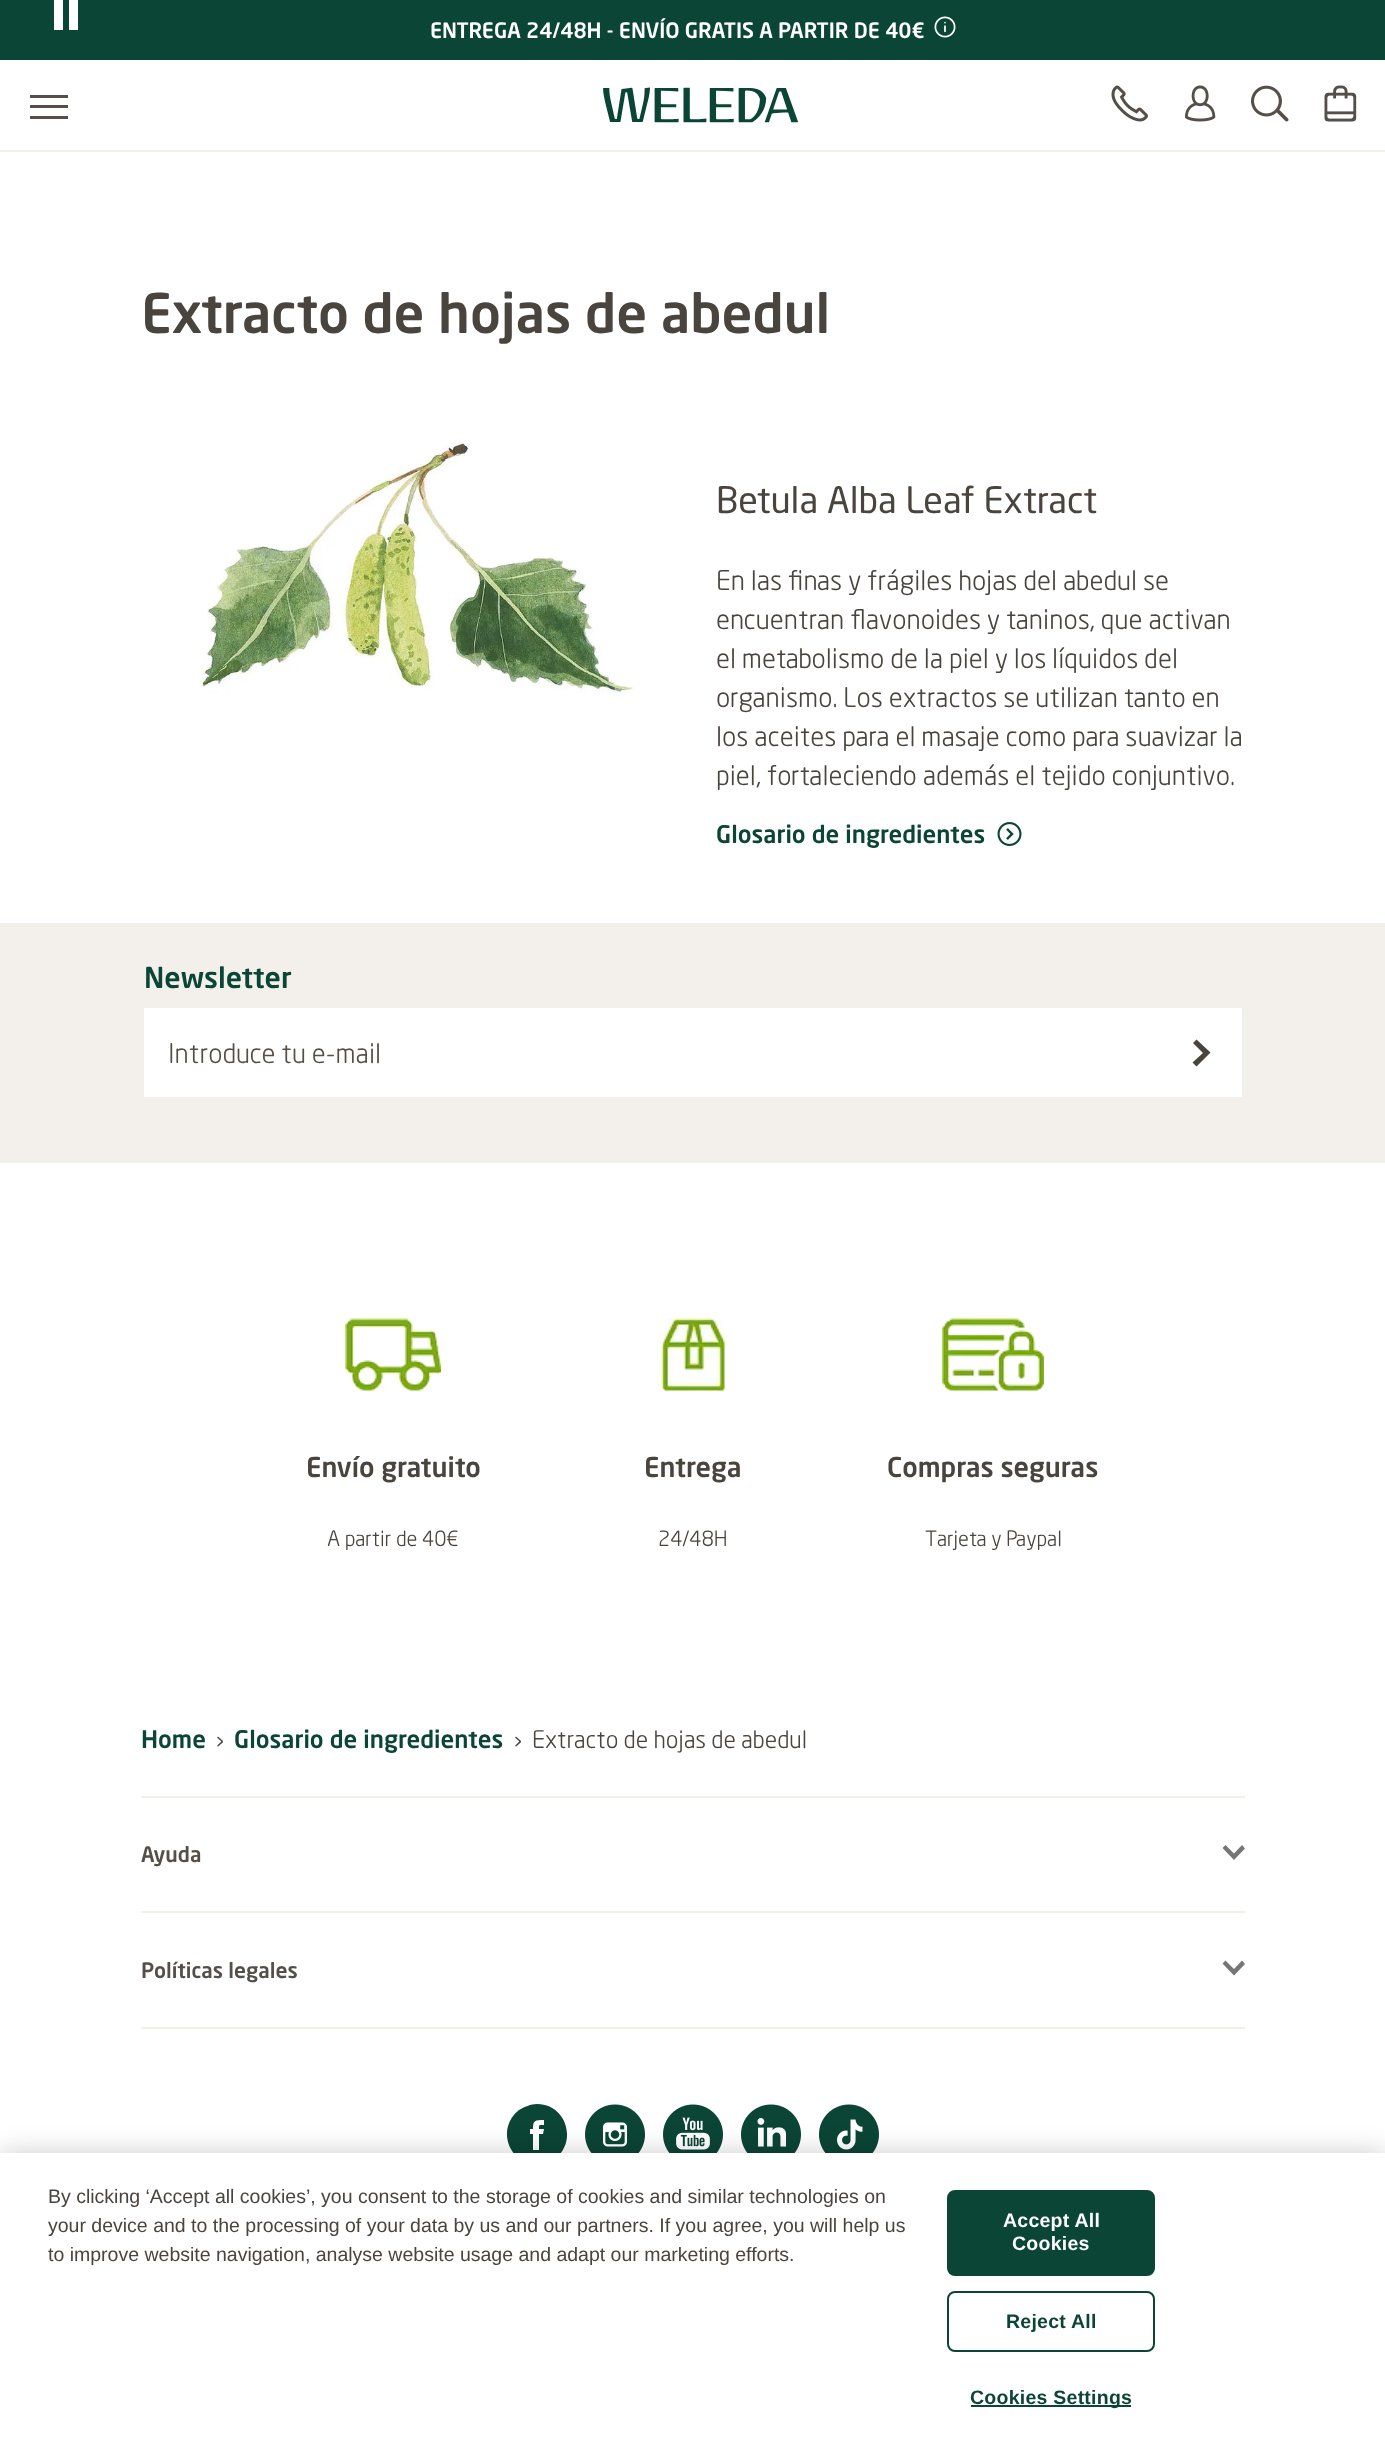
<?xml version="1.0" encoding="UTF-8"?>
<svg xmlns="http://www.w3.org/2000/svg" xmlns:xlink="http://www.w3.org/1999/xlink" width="1385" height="2457">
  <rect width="100%" height="100%" fill="#ffffff" />
  <rect width="1385" height="60" fill="#0b4535" />
  <rect x="69" width="9" height="30" fill="#ffffff" />
  <rect x="54" width="9" height="30" fill="#ffffff" />
  <image x="934" y="16" width="22" height="22" xlink:href="image1.png" />
  <rect y="150" width="1385" height="2" fill="#f3f0eb" />
  <rect x="30" y="105" width="38" height="3" fill="#554f49" />
  <rect x="30" y="95" width="38" height="3" fill="#554f49" />
  <rect x="30" y="116" width="38" height="3" fill="#554f49" />
  <image x="603" y="87" width="195" height="36" xlink:href="image2.png" />
  <image x="1111" y="85" width="37" height="37" xlink:href="image3.png" />
  <image x="1185" y="85" width="31" height="37" xlink:href="image4.png" />
  <image x="1251" y="85" width="38" height="37" xlink:href="image5.png" />
  <image x="1324" y="85" width="33" height="37" xlink:href="image6.png" />
  <image x="201" y="441" width="432" height="253" xlink:href="image7.png" />
  <image x="997" y="822" width="25" height="24" xlink:href="image8.png" />
  <rect y="923" width="1385" height="240" fill="#f3f0eb" />
  <rect x="144" y="1008" width="1098" height="89" fill="#ffffff" />
  <path d="M 1196.5 1039.5 l 14 13 l -14 14 l -4 -4 l 10.5 -9.5 l -10 -10 z" fill="#4a443f" />
  <image x="345" y="1318" width="96" height="73" xlink:href="image9.png" />
  <image x="661" y="1318" width="64" height="73" xlink:href="image10.png" />
  <image x="942" y="1318" width="102" height="73" xlink:href="image11.png" />
  <rect x="141" y="1796" width="1104" height="2" fill="#f3f0eb" />
  <rect x="141" y="1911" width="1104" height="2" fill="#f3f0eb" />
  <path d="M 1245 1848.5 l -11 11.5 l -11.5 -12 l 3 -3 l 8.5 8.5 l 8 -8.5 z" fill="#767676" />
  <rect x="141" y="2027" width="1104" height="2" fill="#f3f0eb" />
  <path d="M 1245 1964 l -11 11.5 l -11.5 -12 l 3 -3 l 8.5 8.5 l 8 -8.5 z" fill="#767676" />
  <path d="M 537 2104 c -6 0 -13 3 -18 6 c -23 18 -11 54 18 54 c 6 0 13 -2 18 -5 c 23 -18 11 -55 -18 -55 z m 6 30 h -4 v 16 h -6 v -16 h -3 v -5 h 3 c 0 -9 2 -9 11 -9 v 5 c -5 0 -5 -1 -5 4 h 5 z" fill="#0b4535" />
  <image x="585" y="2104" width="60" height="49" xlink:href="image12.png" />
  <image x="663" y="2104" width="60" height="49" xlink:href="image13.png" />
  <image x="741" y="2104" width="60" height="49" xlink:href="image14.png" />
  <image x="819" y="2104" width="60" height="49" xlink:href="image15.png" />
  <rect y="2153" width="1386" height="304" fill="#000000" fill-opacity="0.2" filter="blur(13.5px)" />
  <rect y="2153" width="1385" height="304" fill="#ffffff" />
  <rect x="948" y="2191" width="206" height="84" rx="7" fill="#0b4535" stroke="#0b4535" stroke-width="2" />
  <rect x="948" y="2292" width="206" height="59" rx="7" fill="none" stroke="#0b4535" stroke-width="2" />
  <rect x="971" y="2405" width="160" height="2" fill="#0b4535" />
  <text x="430" y="38" style="font-family: 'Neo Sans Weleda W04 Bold'; font-size: 21px; font-weight: bold; fill: #ffffff">ENTREGA 24/48H - ENVÍO GRATIS A PARTIR DE 40€</text>
  <text x="141" y="333" style="font-family: 'Neo Sans Weleda W04 Bold'; font-size: 54px; font-weight: bold; fill: #4a443f">Extracto de hojas de abedul</text>
  <text x="716" y="513" style="font-family: 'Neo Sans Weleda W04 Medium'; font-size: 36px; font-weight: 500; fill: #4a443f">Betula Alba Leaf Extract</text>
  <text x="716" y="590" style="font-family: 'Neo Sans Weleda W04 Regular'; font-size: 27px; fill: #4a443f">En las finas y frágiles hojas del abedul se</text>
  <text x="716" y="629" style="font-family: 'Neo Sans Weleda W04 Regular'; font-size: 27px; fill: #4a443f">encuentran flavonoides y taninos, que activan</text>
  <text x="716" y="668" style="font-family: 'Neo Sans Weleda W04 Regular'; font-size: 27px; fill: #4a443f">el metabolismo de la piel y los líquidos del</text>
  <text x="716" y="707" style="font-family: 'Neo Sans Weleda W04 Regular'; font-size: 27px; fill: #4a443f">organismo. Los extractos se utilizan tanto en</text>
  <text x="716" y="746" style="font-family: 'Neo Sans Weleda W04 Regular'; font-size: 27px; fill: #4a443f">los aceites para el masaje como para suavizar la</text>
  <text x="716" y="785" style="font-family: 'Neo Sans Weleda W04 Regular'; font-size: 27px; fill: #4a443f">piel, fortaleciendo además el tejido conjuntivo.</text>
  <text x="716" y="843" style="font-family: 'Neo Sans Weleda W04 Bold'; font-size: 24px; font-weight: bold; fill: #0b4535">Glosario de ingredientes</text>
  <text x="144" y="988" style="font-family: 'Neo Sans Weleda W04 Bold'; font-size: 28.5px; font-weight: bold; fill: #0b4535">Newsletter</text>
  <text x="168" y="1063" style="font-family: 'Neo Sans Weleda W04 Regular'; font-size: 27px; fill: #554f49">Introduce tu e-mail</text>
  <text x="306" y="1477" style="font-family: 'Neo Sans Weleda W04 Bold'; font-size: 27px; font-weight: bold; fill: #4a443f">Envío gratuito</text>
  <text x="327" y="1546" style="font-family: 'Neo Sans Weleda W04 Regular'; font-size: 21px; fill: #4a443f">A partir de 40€</text>
  <text x="644" y="1477" style="font-family: 'Neo Sans Weleda W04 Bold'; font-size: 27px; font-weight: bold; fill: #4a443f">Entrega</text>
  <text x="658" y="1546" style="font-family: 'Neo Sans Weleda W04 Regular'; font-size: 21px; fill: #4a443f">24/48H</text>
  <text x="887" y="1477" style="font-family: 'Neo Sans Weleda W04 Bold'; font-size: 27px; font-weight: bold; fill: #4a443f">Compras seguras</text>
  <text x="925" y="1546" style="font-family: 'Neo Sans Weleda W04 Regular'; font-size: 21px; fill: #4a443f">Tarjeta y Paypal</text>
  <text x="141" y="1748" style="font-family: 'Neo Sans Weleda W04 Bold'; font-size: 24px; font-weight: bold; fill: #0b4535">Home</text>
  <text x="216" y="1748" style="font-family: 'Neo Sans Weleda W04 Regular'; font-size: 24px; fill: #4a443f">›</text>
  <text x="234" y="1748" style="font-family: 'Neo Sans Weleda W04 Bold'; font-size: 24px; font-weight: bold; fill: #0b4535">Glosario de ingredientes</text>
  <text x="514" y="1748" style="font-family: 'Neo Sans Weleda W04 Regular'; font-size: 24px; fill: #4a443f">›</text>
  <text x="532" y="1748" style="font-family: 'Neo Sans Weleda W04 Regular'; font-size: 24px; fill: #4a443f">Extracto de hojas de abedul</text>
  <text x="141" y="1862" style="font-family: 'Neo Sans Weleda W04 Bold'; font-size: 21px; font-weight: bold; fill: #554f49">Ayuda</text>
  <text x="141" y="1978" style="font-family: 'Neo Sans Weleda W04 Bold'; font-size: 21px; font-weight: bold; fill: #554f49">Políticas legales</text>
  <text x="48" y="2203" style="font-family: Liberation Sans; font-size: 19.5px; fill: #4a443f">By clicking ‘Accept all cookies’, you consent to the storage of cookies and similar technologies on</text>
  <text x="48" y="2232" style="font-family: Liberation Sans; font-size: 19.5px; fill: #4a443f">your device and to the processing of your data by us and our partners. If you agree, you will help us</text>
  <text x="48" y="2261" style="font-family: Liberation Sans; font-size: 19.5px; fill: #4a443f">to improve website navigation, analyse website usage and adapt our marketing efforts.</text>
  <text x="1003" y="2227" style="font-family: Liberation Sans; font-size: 19.5px; font-weight: bold; letter-spacing: 0.25px; fill: #ffffff">Accept All</text>
  <text x="1012" y="2250" style="font-family: Liberation Sans; font-size: 19.5px; font-weight: bold; letter-spacing: 0.25px; fill: #ffffff">Cookies</text>
  <text x="1006" y="2328" style="font-family: Liberation Sans; font-size: 19.5px; font-weight: bold; letter-spacing: 0.25px; fill: #0b4535">Reject All</text>
  <text x="970" y="2404" style="font-family: Liberation Sans; font-size: 19.5px; font-weight: bold; letter-spacing: 0.25px; fill: #0b4535">Cookies Settings</text>
</svg>
